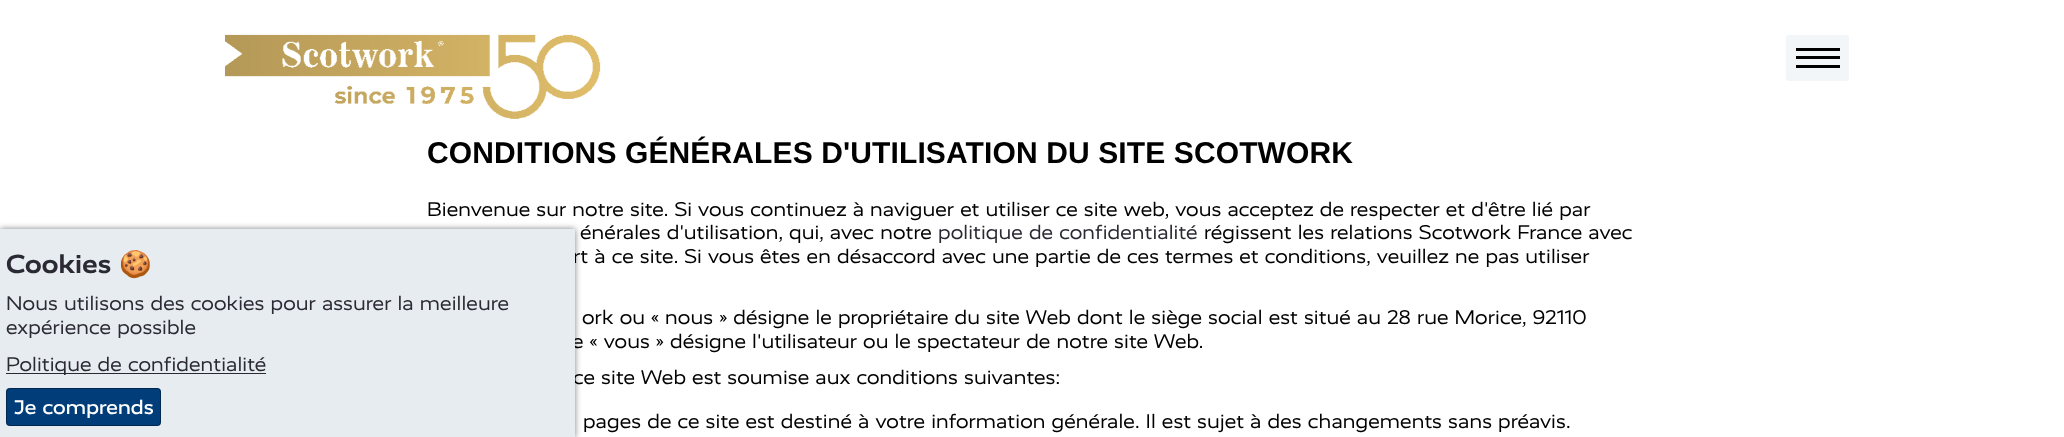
<?xml version="1.0" encoding="UTF-8"?>
<svg xmlns="http://www.w3.org/2000/svg" xmlns:xlink="http://www.w3.org/1999/xlink" width="2064" height="437">
  <rect width="100%" height="100%" fill="#ffffff" />
  <image x="225" y="34" width="376" height="85" xlink:href="image1.png" />
  <rect x="1786" y="35" width="63" height="46" rx="3" fill="#f3f6f8" />
  <rect x="1796" y="48" width="44" height="3" fill="#000000" />
  <rect x="1796" y="56" width="44" height="3" fill="#000000" />
  <rect x="1796" y="65" width="44" height="3" fill="#000000" />
  <rect y="229" width="575" height="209" fill="#808080" filter="blur(3px)" />
  <text x="427" y="163" style="font-family: Liberation Sans; font-size: 30px; font-weight: bold; letter-spacing: 0.12px; fill: #000000">CONDITIONS GÉNÉRALES D'UTILISATION DU SITE SCOTWORK</text>
  <text x="427" y="216" style="font-family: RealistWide; font-size: 20px; letter-spacing: 0.12px; fill: #000000">Bienvenue sur notre site. Si vous continuez à naviguer et utiliser ce site web, vous acceptez de respecter et d'être lié par</text>
  <text x="580" y="239" style="font-family: RealistWide; font-size: 20px; letter-spacing: 0.12px; fill: #000000">énérales d'utilisation, qui, avec notre</text>
  <text x="938" y="239" style="font-family: RealistWide; font-size: 20px; letter-spacing: 0.12px; fill: #2b2a34">politique de confidentialité</text>
  <text x="1204" y="239" style="font-family: RealistWide; font-size: 20px; letter-spacing: 0.12px; fill: #000000">régissent les relations Scotwork France avec</text>
  <text x="573" y="263" style="font-family: RealistWide; font-size: 20px; letter-spacing: 0.12px; fill: #000000">rt à ce site. Si vous êtes en désaccord avec une partie de ces termes et conditions, veuillez ne pas utiliser</text>
  <text x="582" y="324" style="font-family: RealistWide; font-size: 20px; letter-spacing: 0.12px; fill: #000000">ork ou « nous » désigne le propriétaire du site Web dont le siège social est situé au 28 rue Morice, 92110</text>
  <text x="572" y="348" style="font-family: RealistWide; font-size: 20px; letter-spacing: 0.12px; fill: #000000">e « vous » désigne l'utilisateur ou le spectateur de notre site Web.</text>
  <text x="573" y="384" style="font-family: RealistWide; font-size: 20px; letter-spacing: 0.12px; fill: #000000">ce site Web est soumise aux conditions suivantes:</text>
  <rect y="229" width="575" height="208" fill="#e7ecf0" />
  <rect x="6" y="388" width="155" height="38" rx="4" fill="#003d79" />
  <rect x="6.5" y="388.5" width="154" height="37" rx="3.5" fill="none" stroke="#000000" stroke-opacity="0.35" />
  <text x="14" y="414" style="font-family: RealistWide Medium; font-size: 20px; font-weight: 500; letter-spacing: 0.12px; fill: #ffffff">Je comprends</text>
  <rect x="6" y="373" width="260" height="1" fill="#2b2a34" />
  <text x="6" y="371" style="font-family: RealistWide; font-size: 20px; letter-spacing: 0.12px; fill: #2b2a34">Politique de confidentialité</text>
  <text x="6" y="334" style="font-family: RealistWide; font-size: 20px; letter-spacing: 0.12px; fill: #2b2a34">expérience possible</text>
  <text x="6" y="310" style="font-family: RealistWide; font-size: 20px; letter-spacing: 0.12px; fill: #2b2a34">Nous utilisons des cookies pour assurer la meilleure</text>
  <text x="119" y="273" style="font-family: Noto Color Emoji; font-size: 26.25px; font-weight: bold; letter-spacing: 0.12px; fill: #2b2a34">🍪</text>
  <text x="6" y="273" style="font-family: RealistWide; font-size: 26.25px; font-weight: bold; letter-spacing: 0.12px; fill: #2b2a34">Cookies</text>
  <text x="583" y="428" style="font-family: RealistWide; font-size: 20px; letter-spacing: 0.12px; fill: #000000">pages de ce site est destiné à votre information générale. Il est sujet à des changements sans préavis.</text>
</svg>
